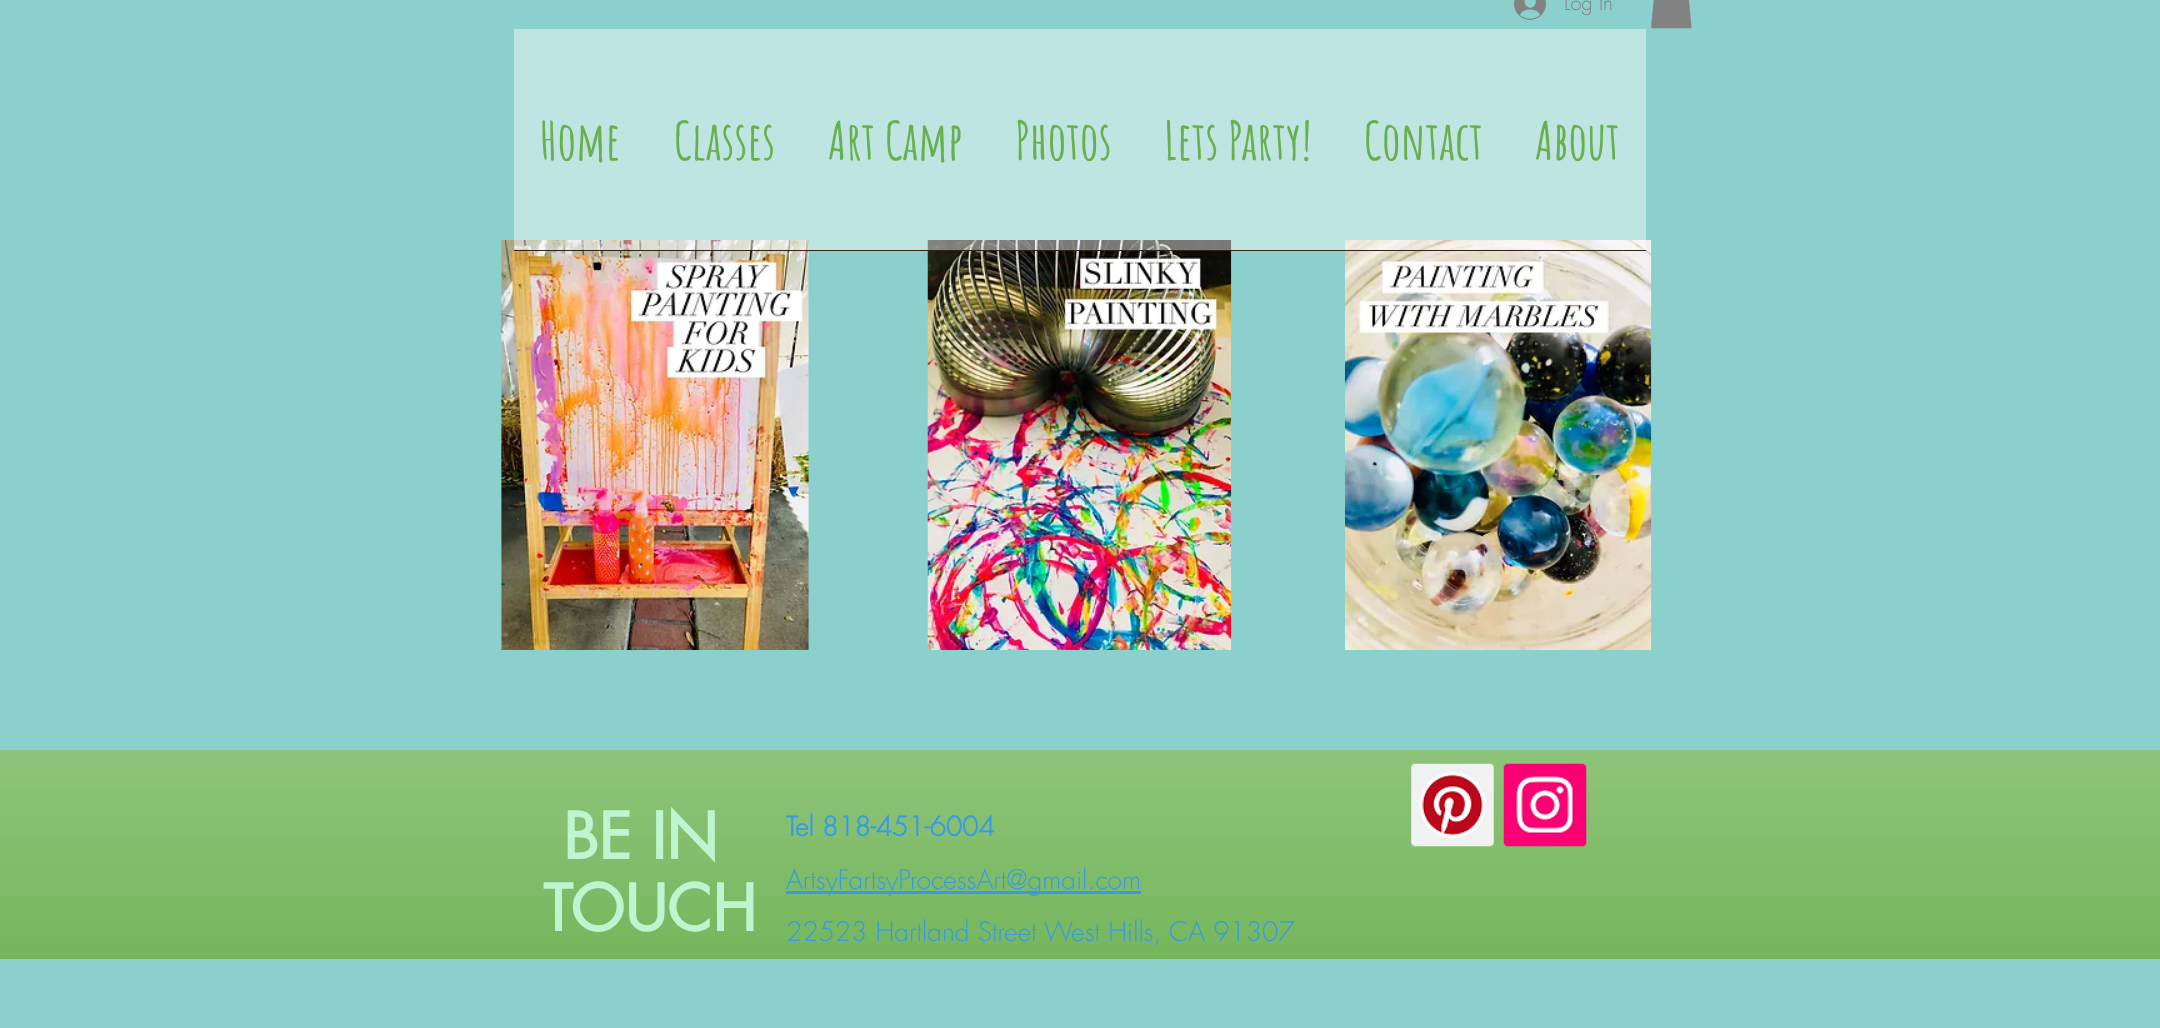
<?xml version="1.0" encoding="UTF-8"?>
<svg xmlns="http://www.w3.org/2000/svg" xmlns:xlink="http://www.w3.org/1999/xlink" width="2160" height="1028">
  <rect width="100%" height="100%" fill="#8bd0cd" />
  <image x="1514" y="0" width="32" height="20" xlink:href="image1.png" />
  <image x="1651" y="0" width="41" height="29" xlink:href="image2.png" />
  <image x="501" y="240" width="308" height="410" xlink:href="image3.png" />
  <image x="927" y="240" width="305" height="410" xlink:href="image4.png" />
  <image x="1345" y="240" width="307" height="410" xlink:href="image5.png" />
  <rect x="514" y="29" width="1132" height="221" fill="#ffffff" fill-opacity="0.45" />
  <rect x="514" y="250" width="1132" height="1" fill="#342216" />
  <rect y="750" width="2160" height="209" fill="#68b04d" />
  <image x="0" y="750" width="2160" height="209" xlink:href="image6.png" />
  <rect x="786" y="891" width="355" height="3" fill="#3699ec" />
  <image x="1411" y="763" width="83" height="84" xlink:href="image7.png" />
  <image x="1503" y="763" width="84" height="84" xlink:href="image8.png" />
  <text x="1564" y="10" style="font-family: futura; font-size: 20px; font-weight: 300; fill: #828282">Log In</text>
  <text x="540" y="160" style="font-family: Amatic SC; font-size: 52.5px; font-weight: bold; fill: #68b04d">Home</text>
  <text x="674" y="160" style="font-family: Amatic SC; font-size: 52.5px; font-weight: bold; fill: #68b04d">Classes</text>
  <text x="828" y="160" style="font-family: Amatic SC; font-size: 52.5px; font-weight: bold; fill: #68b04d">Art Camp</text>
  <text x="1015" y="160" style="font-family: Amatic SC; font-size: 52.5px; font-weight: bold; fill: #68b04d">Photos</text>
  <text x="1164" y="160" style="font-family: Amatic SC; font-size: 52.5px; font-weight: bold; fill: #68b04d">Lets Party!</text>
  <text x="1364" y="160" style="font-family: Amatic SC; font-size: 52.5px; font-weight: bold; fill: #68b04d">Contact</text>
  <text x="1535" y="160" style="font-family: Amatic SC; font-size: 52.5px; font-weight: bold; fill: #68b04d">About</text>
  <text x="563" y="859" style="font-family: futura; font-size: 62.5px; font-weight: bold; fill: #bcf5d0">BE IN</text>
  <text x="543" y="931" style="font-family: futura; font-size: 62.5px; font-weight: bold; fill: #bcf5d0">TOUCH</text>
  <text x="786" y="836" style="font-family: 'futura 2'; font-size: 26.25px; font-weight: bold; fill: #3699ec">Tel 818-451-6004</text>
  <text x="786" y="889" style="font-family: futura; font-size: 26.25px; font-weight: 300; fill: #3699ec">ArtsyFartsyProcessArt@gmail.com</text>
  <text x="786" y="941" style="font-family: futura; font-size: 26.25px; font-weight: 300; fill: #3699ec">22523 Hartland Street West Hills, CA 91307</text>
</svg>
